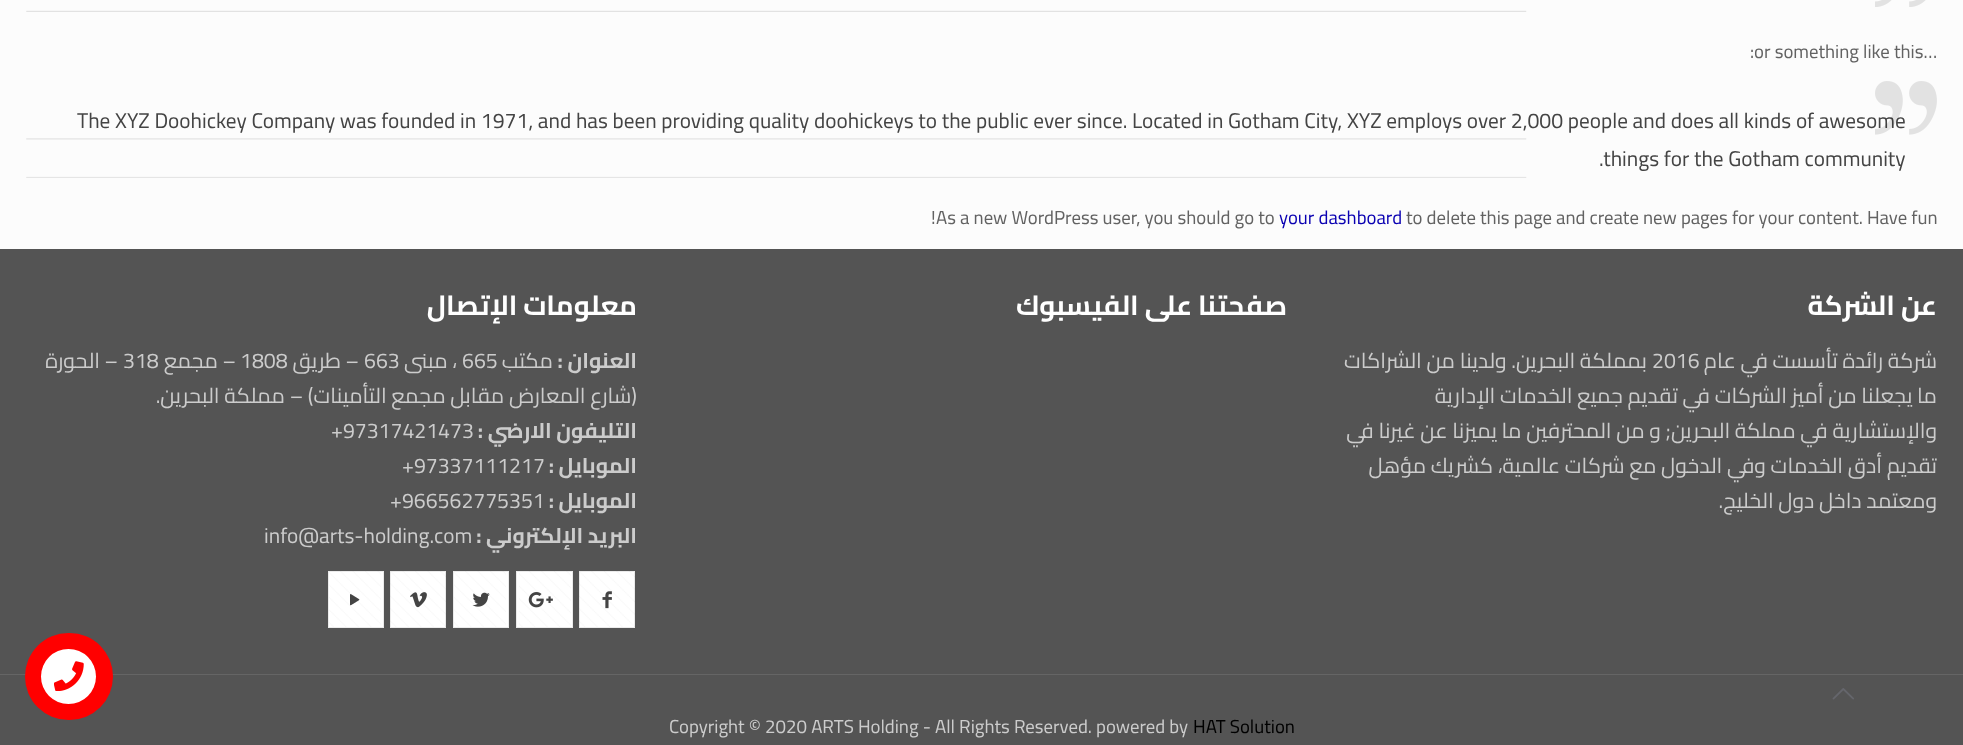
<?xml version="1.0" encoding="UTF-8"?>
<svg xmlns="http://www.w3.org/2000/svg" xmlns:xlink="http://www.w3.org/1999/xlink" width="1963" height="745">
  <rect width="100%" height="100%" fill="#fcfcfc" />
  <image x="26" y="10" width="1501" height="2" xlink:href="image1.png" />
  <image x="1875" y="0" width="51" height="7" xlink:href="image2.png" />
  <image x="26" y="138" width="1501" height="40" xlink:href="image3.png" />
  <rect y="249" width="1963" height="496" fill="#545454" />
  <rect x="328" y="571" width="56" height="57" fill="#ffffff" />
  <image x="329" y="571" width="52" height="56" xlink:href="image5.png" />
  <rect x="328.5" y="571.5" width="55" height="56" fill="none" stroke="#000000" stroke-opacity="0.08" />
  <image x="350" y="594" width="10" height="12" xlink:href="image6.png" />
  <rect x="390" y="571" width="56" height="57" fill="#ffffff" />
  <image x="390" y="571" width="56" height="56" xlink:href="image7.png" />
  <rect x="390.5" y="571.5" width="55" height="56" fill="none" stroke="#000000" stroke-opacity="0.08" />
  <image x="410" y="592" width="17" height="16" xlink:href="image8.png" />
  <rect x="453" y="571" width="56" height="57" fill="#ffffff" />
  <image x="454" y="571" width="52" height="56" xlink:href="image5.png" />
  <rect x="453.5" y="571.5" width="55" height="56" fill="none" stroke="#000000" stroke-opacity="0.08" />
  <image x="472" y="592" width="18" height="15" xlink:href="image9.png" />
  <rect x="516" y="571" width="57" height="57" fill="#ffffff" />
  <image x="519" y="571" width="52" height="56" xlink:href="image10.png" />
  <rect x="516.5" y="571.5" width="56" height="56" fill="none" stroke="#000000" stroke-opacity="0.08" />
  <image x="528" y="592" width="25" height="16" xlink:href="image11.png" />
  <rect x="579" y="571" width="56" height="57" fill="#ffffff" />
  <image x="579" y="571" width="56" height="56" xlink:href="image12.png" />
  <rect x="579.5" y="571.5" width="55" height="56" fill="none" stroke="#000000" stroke-opacity="0.08" />
  <image x="602" y="591" width="10" height="18" xlink:href="image13.png" />
  <rect y="674" width="1963" height="1" fill="#656565" />
  <rect x="25" y="633" width="88" height="87" rx="43.5" fill="#ff0000" />
  <circle cx="68.5" cy="676.5" r="27.5" fill="#ffffff" />
  <image x="54" y="661" width="30" height="30" xlink:href="image14.png" />
  <image x="1832" y="688" width="22" height="12" xlink:href="image15.png" />
  <text x="1750" y="58" style="font-family: Cairo; font-size: 18.75px; fill: #626262">:or something like this…</text>
  <text x="77" y="128" style="font-family: Cairo; font-size: 21.25px; fill: #444444">The XYZ Doohickey Company was founded in 1971, and has been providing quality doohickeys to the public ever since. Located in Gotham City, XYZ employs over 2,000 people and does all kinds of awesome</text>
  <image x="1875" y="81" width="62" height="54" xlink:href="image4.png" />
  <text x="1599" y="166" style="font-family: Cairo; font-size: 21.25px; fill: #444444">.things for the Gotham community</text>
  <text x="931" y="224" style="font-family: Cairo; font-size: 18.75px; fill: #626262">!</text>
  <text x="936" y="224" style="font-family: Cairo; font-size: 18.75px; fill: #626262">As a new WordPress user, you should go to</text>
  <text x="1279" y="224" style="font-family: Cairo; font-size: 18.75px; fill: #0a00b2">your dashboard</text>
  <text x="1406" y="224" style="font-family: Cairo; font-size: 18.75px; fill: #626262">to delete this page and create new pages for your content. Have fun</text>
  <text x="637" y="315" style="font-family: Cairo; font-size: 27.5px; font-weight: bold; direction: rtl; fill: #ffffff">معلومات الإتصال</text>
  <text x="118" y="368" style="font-family: Cairo; font-size: 21.25px; direction: rtl; fill: #cccccc">– الحورة</text>
  <text x="123" y="368" style="font-family: Cairo; font-size: 21.25px; fill: #cccccc">318</text>
  <text x="236" y="368" style="font-family: Cairo; font-size: 21.25px; direction: rtl; fill: #cccccc">– مجمع</text>
  <text x="240" y="368" style="font-family: Cairo; font-size: 21.25px; fill: #cccccc">1808</text>
  <text x="359" y="368" style="font-family: Cairo; font-size: 21.25px; direction: rtl; fill: #cccccc">– طريق</text>
  <text x="364" y="368" style="font-family: Cairo; font-size: 21.25px; fill: #cccccc">663</text>
  <text x="457" y="368" style="font-family: Cairo; font-size: 21.25px; direction: rtl; fill: #cccccc">، مبنى</text>
  <text x="462" y="368" style="font-family: Cairo; font-size: 21.25px; fill: #cccccc">665</text>
  <text x="553" y="368" style="font-family: Cairo; font-size: 21.25px; direction: rtl; fill: #cccccc">مكتب</text>
  <text x="637" y="368" style="font-family: Cairo; font-size: 21.25px; font-weight: bold; direction: rtl; fill: #cccccc">العنوان :</text>
  <text x="637" y="403" style="font-family: Cairo; font-size: 21.25px; direction: rtl; fill: #cccccc">(شارع المعارض مقابل مجمع التأمينات) – مملكة البحرين.</text>
  <text x="331" y="438" style="font-family: Cairo; font-size: 21.25px; fill: #cccccc">+97317421473</text>
  <text x="637" y="438" style="font-family: Cairo; font-size: 21.25px; font-weight: bold; direction: rtl; fill: #cccccc">التليفون الارضي :</text>
  <text x="402" y="473" style="font-family: Cairo; font-size: 21.25px; fill: #cccccc">+97337111217</text>
  <text x="637" y="473" style="font-family: Cairo; font-size: 21.25px; font-weight: bold; direction: rtl; fill: #cccccc">الموبايل :</text>
  <text x="390" y="508" style="font-family: Cairo; font-size: 21.25px; fill: #cccccc">+966562775351</text>
  <text x="637" y="508" style="font-family: Cairo; font-size: 21.25px; font-weight: bold; direction: rtl; fill: #cccccc">الموبايل :</text>
  <text x="264" y="543" style="font-family: Cairo; font-size: 21.25px; fill: #cccccc">info@arts-holding.com</text>
  <text x="637" y="543" style="font-family: Cairo; font-size: 21.25px; font-weight: bold; direction: rtl; fill: #cccccc">البريد الإلكتروني :</text>
  <text x="1287" y="315" style="font-family: Cairo; font-size: 27.5px; font-weight: bold; direction: rtl; fill: #ffffff">صفحتنا على الفيسبوك</text>
  <text x="1937" y="315" style="font-family: Cairo; font-size: 27.5px; font-weight: bold; direction: rtl; fill: #ffffff">عن الشركة</text>
  <text x="1647" y="368" style="font-family: Cairo; font-size: 21.25px; direction: rtl; fill: #cccccc">بمملكة البحرين. ولدينا من الشراكات</text>
  <text x="1652" y="368" style="font-family: Cairo; font-size: 21.25px; fill: #cccccc">2016</text>
  <text x="1937" y="368" style="font-family: Cairo; font-size: 21.25px; direction: rtl; fill: #cccccc">شركة رائدة تأسست في عام</text>
  <text x="1937" y="403" style="font-family: Cairo; font-size: 21.25px; direction: rtl; fill: #cccccc">ما يجعلنا من أميز الشركات في تقديم جميع الخدمات الإدارية</text>
  <text x="1937" y="438" style="font-family: Cairo; font-size: 21.25px; direction: rtl; fill: #cccccc">والإستشارية في مملكة البحرين; و من المحترفين ما يميزنا عن غيرنا في</text>
  <text x="1937" y="473" style="font-family: Cairo; font-size: 21.25px; direction: rtl; fill: #cccccc">تقديم أدق الخدمات وفي الدخول مع شركات عالمية، كشريك مؤهل</text>
  <text x="1937" y="508" style="font-family: Cairo; font-size: 21.25px; direction: rtl; fill: #cccccc">ومعتمد داخل دول الخليج.</text>
  <text x="669" y="733" style="font-family: Cairo; font-size: 18.75px; fill: #cccccc">Copyright © 2020 ARTS Holding - All Rights Reserved. powered by</text>
  <text x="1193" y="733" style="font-family: Cairo; font-size: 18.75px; fill: #000000">HAT Solution</text>
</svg>
